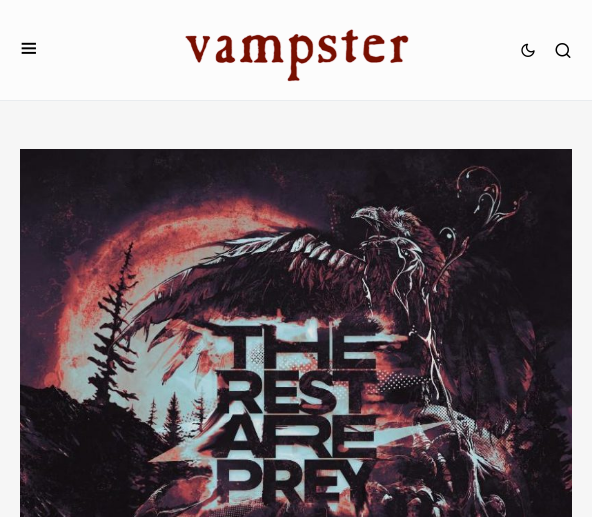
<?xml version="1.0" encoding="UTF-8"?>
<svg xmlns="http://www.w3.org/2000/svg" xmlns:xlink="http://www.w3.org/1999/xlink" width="592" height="517">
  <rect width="100%" height="100%" fill="#f6f6f6" />
  <rect width="592" height="100" fill="#fcfcfc" />
  <rect y="100" width="592" height="1" fill="#e9ecef" />
  <image x="21" y="42" width="15" height="12" xlink:href="image1.png" />
  <image x="185" y="29" width="224" height="53" xlink:href="image2.png" />
  <image x="521" y="43" width="14" height="14" xlink:href="image3.png" />
  <image x="555" y="43" width="16" height="15" xlink:href="image4.png" />
  <image x="20" y="149" width="552" height="368" xlink:href="image5.png" />
</svg>
